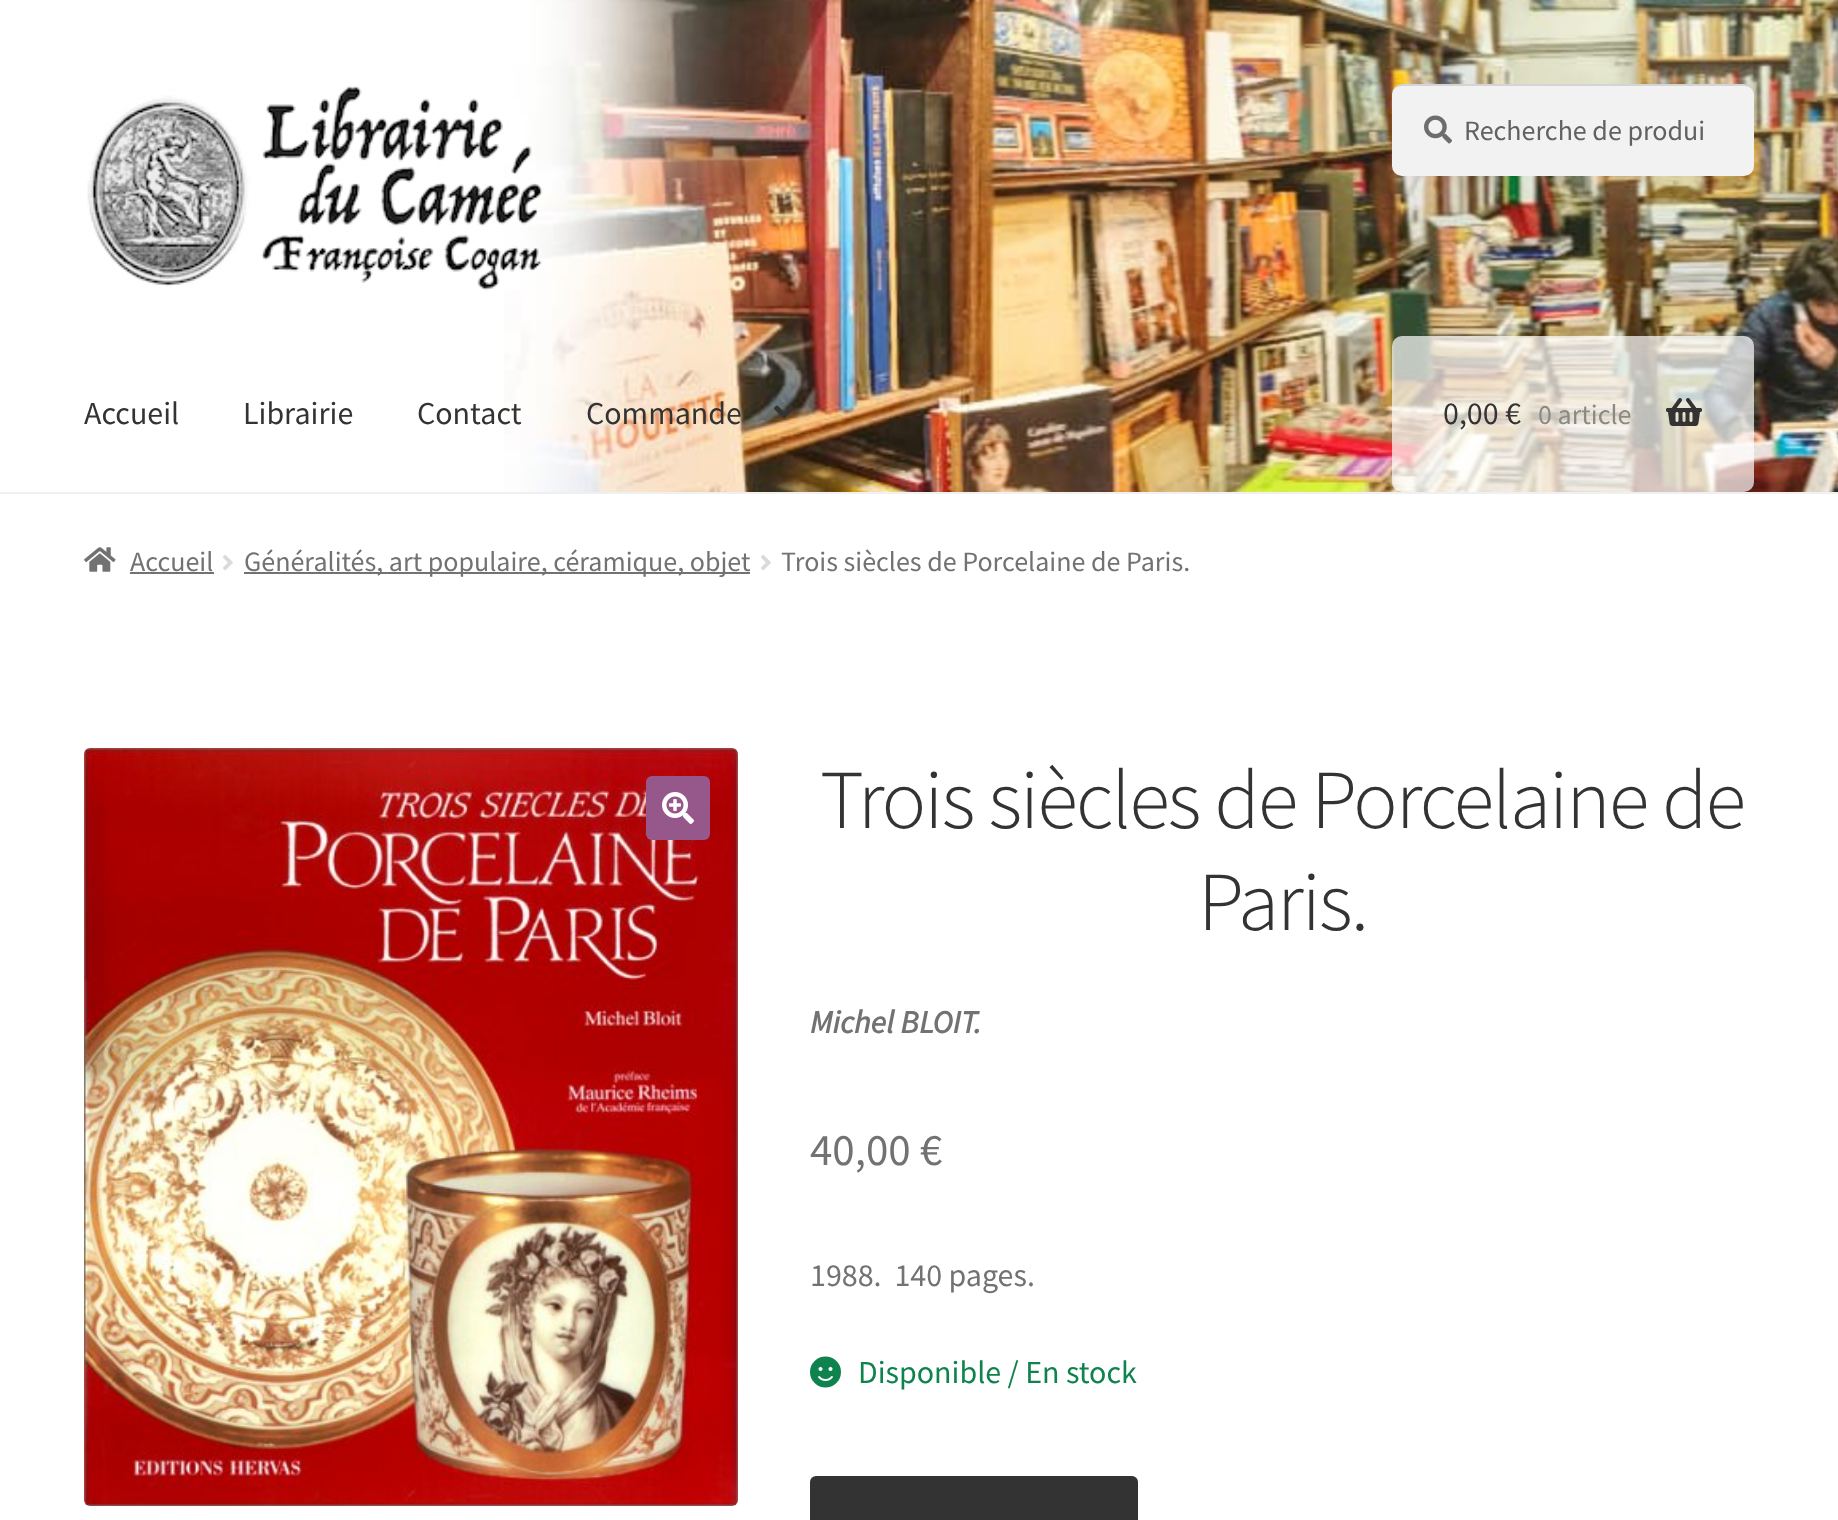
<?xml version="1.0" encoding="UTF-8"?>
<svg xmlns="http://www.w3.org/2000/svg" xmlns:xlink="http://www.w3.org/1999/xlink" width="1838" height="1520">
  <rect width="100%" height="100%" fill="#ffffff" />
  <image x="504" y="0" width="1334" height="492" xlink:href="image1.png" />
  <rect y="492" width="1838" height="2" fill="#f0f0f0" />
  <image x="87" y="85" width="456" height="206" xlink:href="image2.png" />
  <rect x="1392" y="84" width="362" height="92" rx="10" fill="#f2f2f2" />
  <image x="1424" y="115" width="28" height="29" xlink:href="image3.png" />
  <path d="M 1402 86 h 342 c 6 0 10 4 10 10 c 0 -5 -2 -11 -8 -12 h -344 c -7 0 -10 6 -10 12 c 0 -6 4 -10 10 -10 z" fill="#000000" fill-opacity="0.12" />
  <image x="774" y="405" width="20" height="14" xlink:href="image4.png" />
  <rect x="1392" y="336" width="362" height="156" rx="10" fill="#ffffff" fill-opacity="0.7" />
  <image x="1666" y="398" width="36" height="28" xlink:href="image5.png" />
  <image x="84" y="547" width="32" height="25" xlink:href="image6.png" />
  <rect x="130" y="572" width="84" height="2" fill="#727272" />
  <image x="223" y="555" width="10" height="16" xlink:href="image7.png" />
  <rect x="244" y="572" width="506" height="2" fill="#727272" />
  <image x="761" y="555" width="10" height="16" xlink:href="image7.png" />
  <image x="84" y="748" width="654" height="758" xlink:href="image8.png" />
  <rect x="646" y="776" width="64" height="64" rx="6" fill="#96588a" />
  <image x="662" y="792" width="32" height="32" xlink:href="image9.png" />
  <image x="810" y="1356" width="31" height="32" xlink:href="image10.png" />
  <rect x="810" y="1476" width="328" height="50" rx="6" fill="#333333" />
  <text x="1464" y="140" style="font-family: Source Sans Pro; font-size: 28px; fill: #616161">Recherche de produi</text>
  <text x="84" y="424" style="font-family: Source Sans Pro; font-size: 32px; fill: #333333">Accueil</text>
  <text x="243" y="424" style="font-family: Source Sans Pro; font-size: 32px; fill: #333333">Librairie</text>
  <text x="417" y="424" style="font-family: Source Sans Pro; font-size: 32px; fill: #333333">Contact</text>
  <text x="586" y="424" style="font-family: Source Sans Pro; font-size: 32px; fill: #333333">Commande</text>
  <text x="1443" y="424" style="font-family: Source Sans Pro; font-size: 32px; fill: #333333">0,00 €</text>
  <text x="1538" y="424" style="font-family: Source Sans Pro; font-size: 28px; fill: #8c8984">0 article</text>
  <text x="130" y="571" style="font-family: Source Sans Pro; font-size: 28px; fill: #727272">Accueil</text>
  <text x="244" y="571" style="font-family: Source Sans Pro; font-size: 28px; fill: #727272">Généralités, art populaire, céramique, objet</text>
  <text x="781" y="571" style="font-family: Source Sans Pro; font-size: 28px; fill: #727272">Trois siècles de Porcelaine de Paris.</text>
  <text x="820" y="828" style="font-family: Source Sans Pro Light; font-size: 83.75px; font-weight: 300; letter-spacing: -2px; fill: #333333">Trois siècles de Porcelaine de</text>
  <text x="1198" y="930" style="font-family: Source Sans Pro Light; font-size: 83.75px; font-weight: 300; letter-spacing: -2px; fill: #333333">Paris.</text>
  <text x="810" y="1033" style="font-family: Source Sans Pro; font-size: 32px; font-weight: bold; font-style: italic; fill: #727272">Michel BLOIT.</text>
  <text x="810" y="1165" style="font-family: Source Sans Pro; font-size: 45px; fill: #727272">40,00 €</text>
  <text x="810" y="1286" style="font-family: Source Sans Pro; font-size: 32px; fill: #727272" xml:space="preserve">1988.  140 pages.</text>
  <text x="858" y="1383" style="font-family: Source Sans Pro; font-size: 32px; fill: #0f834d">Disponible / En stock</text>
</svg>
